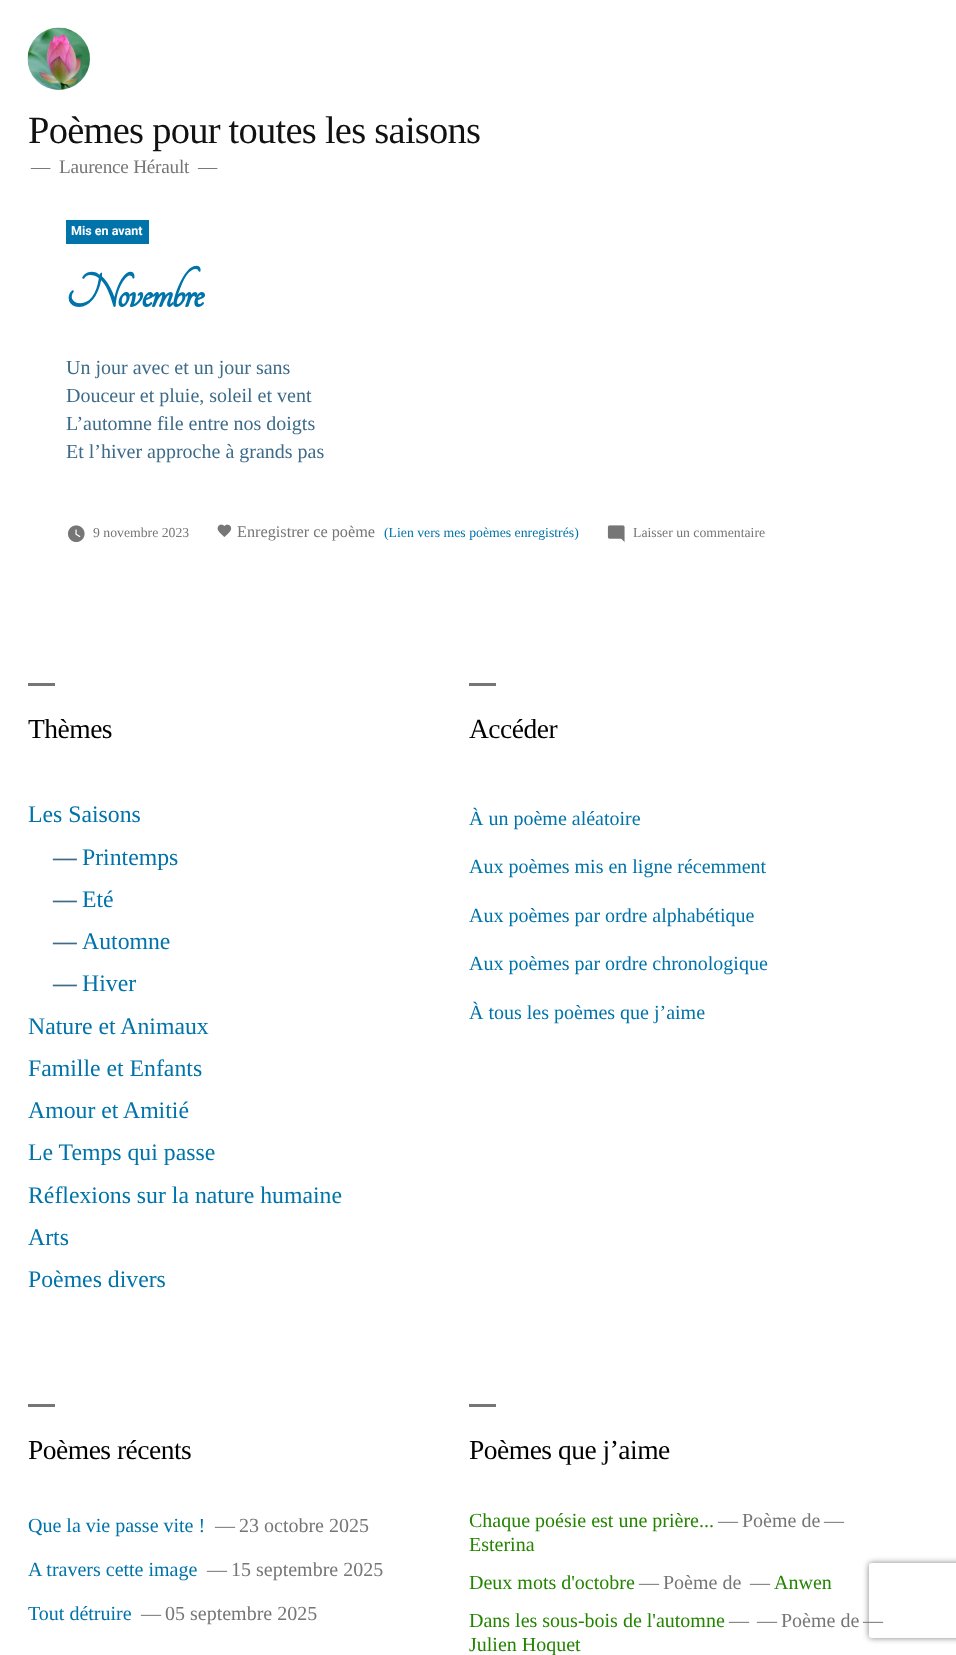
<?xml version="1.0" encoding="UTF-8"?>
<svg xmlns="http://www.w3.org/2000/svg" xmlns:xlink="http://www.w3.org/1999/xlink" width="956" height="1655">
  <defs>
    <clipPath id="clip1"><path d="M 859 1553 h 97 v 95 h -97 z m 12.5 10 h 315 c 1.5 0 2.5 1 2.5 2.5 v 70 c 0 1.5 -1 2.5 -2.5 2.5 h -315 c -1.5 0 -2.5 -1 -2.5 -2.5 v -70 c 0 -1.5 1 -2.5 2.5 -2.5 z" clip-rule="evenodd" /></clipPath>
  </defs>
  <rect width="100%" height="100%" fill="#ffffff" />
  <image x="27" y="27" width="63" height="63" xlink:href="image1.png" />
  <rect x="66" y="220" width="83" height="24" fill="#0073aa" />
  <image x="67" y="525" width="18" height="18" xlink:href="image2.png" />
  <image x="217" y="524" width="15" height="13" xlink:href="image3.png" />
  <image x="607" y="525" width="18" height="17" xlink:href="image4.png" />
  <rect x="28" y="683" width="27" height="3" fill="#767676" />
  <rect x="469" y="683" width="27" height="3" fill="#767676" />
  <rect x="28" y="1404" width="27" height="3" fill="#767676" />
  <rect x="469" y="1404" width="27" height="3" fill="#767676" />
  <g clip-path="url(#clip1)">
    <rect x="869" y="1563" width="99" height="75" rx="2.5" fill="#808080" filter="blur(3px)" />
  </g>
  <text x="28" y="143" style="font-family: Liberation Serif; font-size: 38.5px; letter-spacing: -0.75px; fill: #111111">Poèmes pour toutes les saisons</text>
  <text x="31" y="173" style="font-family: Liberation Serif; font-size: 19.25px; letter-spacing: -0.25px; fill: #767676">—</text>
  <text x="59" y="173" style="font-family: Liberation Serif; font-size: 19.25px; letter-spacing: -0.25px; fill: #767676">Laurence Hérault</text>
  <text x="198" y="173" style="font-family: Liberation Serif; font-size: 19.25px; letter-spacing: -0.25px; fill: #767676">—</text>
  <text x="71" y="235" style="font-family: Roboto; font-size: 12.5px; font-weight: bold; fill: #ffffff">Mis en avant</text>
  <text x="66" y="307" style="font-family: Tangerine; font-size: 52.5px; font-weight: bold; letter-spacing: -1px; fill: #0073aa">Novembre</text>
  <text x="66" y="374" style="font-family: Liberation Serif; font-size: 20px; fill: #3d6b89">Un jour avec et un jour sans</text>
  <text x="66" y="402" style="font-family: Liberation Serif; font-size: 20px; fill: #3d6b89">Douceur et pluie, soleil et vent</text>
  <text x="66" y="430" style="font-family: Liberation Serif; font-size: 20px; fill: #3d6b89">L’automne file entre nos doigts</text>
  <text x="66" y="458" style="font-family: Liberation Serif; font-size: 20px; fill: #3d6b89">Et l’hiver approche à grands pas</text>
  <text x="93" y="537" style="font-family: Liberation Serif; font-size: 13.75px; fill: #767676">9 novembre 2023</text>
  <text x="237" y="537" style="font-family: Liberation Serif; font-size: 16.25px; fill: #767676">Enregistrer ce poème</text>
  <text x="384" y="537" style="font-family: Liberation Serif; font-size: 13.75px; fill: #0073aa">(Lien vers mes poèmes enregistrés)</text>
  <text x="633" y="537" style="font-family: Liberation Serif; font-size: 13.75px; fill: #767676">Laisser un commentaire</text>
  <text x="28" y="738" style="font-family: Liberation Serif; font-size: 27.5px; letter-spacing: -0.5px; fill: #000000">Thèmes</text>
  <text x="28" y="822" style="font-family: Liberation Serif; font-size: 23.75px; fill: #0073aa">Les Saisons</text>
  <text x="53" y="865" style="font-family: Liberation Serif; font-size: 23.75px; font-weight: bold; fill: #3d6b89">—</text>
  <text x="82" y="865" style="font-family: Liberation Serif; font-size: 23.75px; fill: #0073aa">Printemps</text>
  <text x="53" y="907" style="font-family: Liberation Serif; font-size: 23.75px; font-weight: bold; fill: #3d6b89">—</text>
  <text x="82" y="907" style="font-family: Liberation Serif; font-size: 23.75px; fill: #0073aa">Eté</text>
  <text x="53" y="949" style="font-family: Liberation Serif; font-size: 23.75px; font-weight: bold; fill: #3d6b89">—</text>
  <text x="82" y="949" style="font-family: Liberation Serif; font-size: 23.75px; fill: #0073aa">Automne</text>
  <text x="53" y="991" style="font-family: Liberation Serif; font-size: 23.75px; font-weight: bold; fill: #3d6b89">—</text>
  <text x="82" y="991" style="font-family: Liberation Serif; font-size: 23.75px; fill: #0073aa">Hiver</text>
  <text x="28" y="1034" style="font-family: Liberation Serif; font-size: 23.75px; fill: #0073aa">Nature et Animaux</text>
  <text x="28" y="1076" style="font-family: Liberation Serif; font-size: 23.75px; fill: #0073aa">Famille et Enfants</text>
  <text x="28" y="1118" style="font-family: Liberation Serif; font-size: 23.75px; fill: #0073aa">Amour et Amitié</text>
  <text x="28" y="1160" style="font-family: Liberation Serif; font-size: 23.75px; fill: #0073aa">Le Temps qui passe</text>
  <text x="28" y="1203" style="font-family: Liberation Serif; font-size: 23.75px; fill: #0073aa">Réflexions sur la nature humaine</text>
  <text x="28" y="1245" style="font-family: Liberation Serif; font-size: 23.75px; fill: #0073aa">Arts</text>
  <text x="28" y="1287" style="font-family: Liberation Serif; font-size: 23.75px; fill: #0073aa">Poèmes divers</text>
  <text x="469" y="738" style="font-family: Liberation Serif; font-size: 27.5px; letter-spacing: -0.5px; fill: #000000">Accéder</text>
  <text x="469" y="825" style="font-family: Liberation Serif; font-size: 20px; fill: #0073aa">À un poème aléatoire</text>
  <text x="469" y="873" style="font-family: Liberation Serif; font-size: 20px; fill: #0073aa">Aux poèmes mis en ligne récemment</text>
  <text x="469" y="922" style="font-family: Liberation Serif; font-size: 20px; fill: #0073aa">Aux poèmes par ordre alphabétique</text>
  <text x="469" y="970" style="font-family: Liberation Serif; font-size: 20px; fill: #0073aa">Aux poèmes par ordre chronologique</text>
  <text x="469" y="1019" style="font-family: Liberation Serif; font-size: 20px; fill: #0073aa">À tous les poèmes que j’aime</text>
  <text x="28" y="1459" style="font-family: Liberation Serif; font-size: 27.5px; letter-spacing: -0.5px; fill: #000000">Poèmes récents</text>
  <text x="28" y="1532" style="font-family: Liberation Serif; font-size: 20px; fill: #0073aa">Que la vie passe vite !</text>
  <text x="215" y="1532" style="font-family: Liberation Serif; font-size: 20px; fill: #767676">—</text>
  <text x="239" y="1532" style="font-family: Liberation Serif; font-size: 20px; fill: #767676">23 octobre 2025</text>
  <text x="28" y="1576" style="font-family: Liberation Serif; font-size: 20px; fill: #0073aa">A travers cette image</text>
  <text x="207" y="1576" style="font-family: Liberation Serif; font-size: 20px; fill: #767676">—</text>
  <text x="231" y="1576" style="font-family: Liberation Serif; font-size: 20px; fill: #767676">15 septembre 2025</text>
  <text x="28" y="1620" style="font-family: Liberation Serif; font-size: 20px; fill: #0073aa">Tout détruire</text>
  <text x="141" y="1620" style="font-family: Liberation Serif; font-size: 20px; fill: #767676">—</text>
  <text x="165" y="1620" style="font-family: Liberation Serif; font-size: 20px; fill: #767676">05 septembre 2025</text>
  <text x="469" y="1459" style="font-family: Liberation Serif; font-size: 27.5px; letter-spacing: -0.5px; fill: #000000">Poèmes que j’aime</text>
  <text x="469" y="1527" style="font-family: Liberation Serif; font-size: 20px; fill: #248401">Chaque poésie est une prière...</text>
  <text x="718" y="1527" style="font-family: Liberation Serif; font-size: 20px; fill: #767676">—</text>
  <text x="742" y="1527" style="font-family: Liberation Serif; font-size: 20px; fill: #767676">Poème de</text>
  <text x="824" y="1527" style="font-family: Liberation Serif; font-size: 20px; fill: #767676">—</text>
  <text x="469" y="1551" style="font-family: Liberation Serif; font-size: 20px; fill: #248401">Esterina</text>
  <text x="469" y="1589" style="font-family: Liberation Serif; font-size: 20px; fill: #248401">Deux mots d'octobre</text>
  <text x="639" y="1589" style="font-family: Liberation Serif; font-size: 20px; fill: #767676">—</text>
  <text x="663" y="1589" style="font-family: Liberation Serif; font-size: 20px; fill: #767676">Poème de</text>
  <text x="750" y="1589" style="font-family: Liberation Serif; font-size: 20px; fill: #767676">—</text>
  <text x="774" y="1589" style="font-family: Liberation Serif; font-size: 20px; fill: #248401">Anwen</text>
  <text x="469" y="1627" style="font-family: Liberation Serif; font-size: 20px; fill: #248401">Dans les sous-bois de l'automne</text>
  <text x="729" y="1627" style="font-family: Liberation Serif; font-size: 20px; fill: #767676">—</text>
  <text x="757" y="1627" style="font-family: Liberation Serif; font-size: 20px; fill: #767676">—</text>
  <text x="781" y="1627" style="font-family: Liberation Serif; font-size: 20px; fill: #767676">Poème de</text>
  <text x="863" y="1627" style="font-family: Liberation Serif; font-size: 20px; fill: #767676">—</text>
  <text x="469" y="1651" style="font-family: Liberation Serif; font-size: 20px; fill: #248401">Julien Hoquet</text>
</svg>
